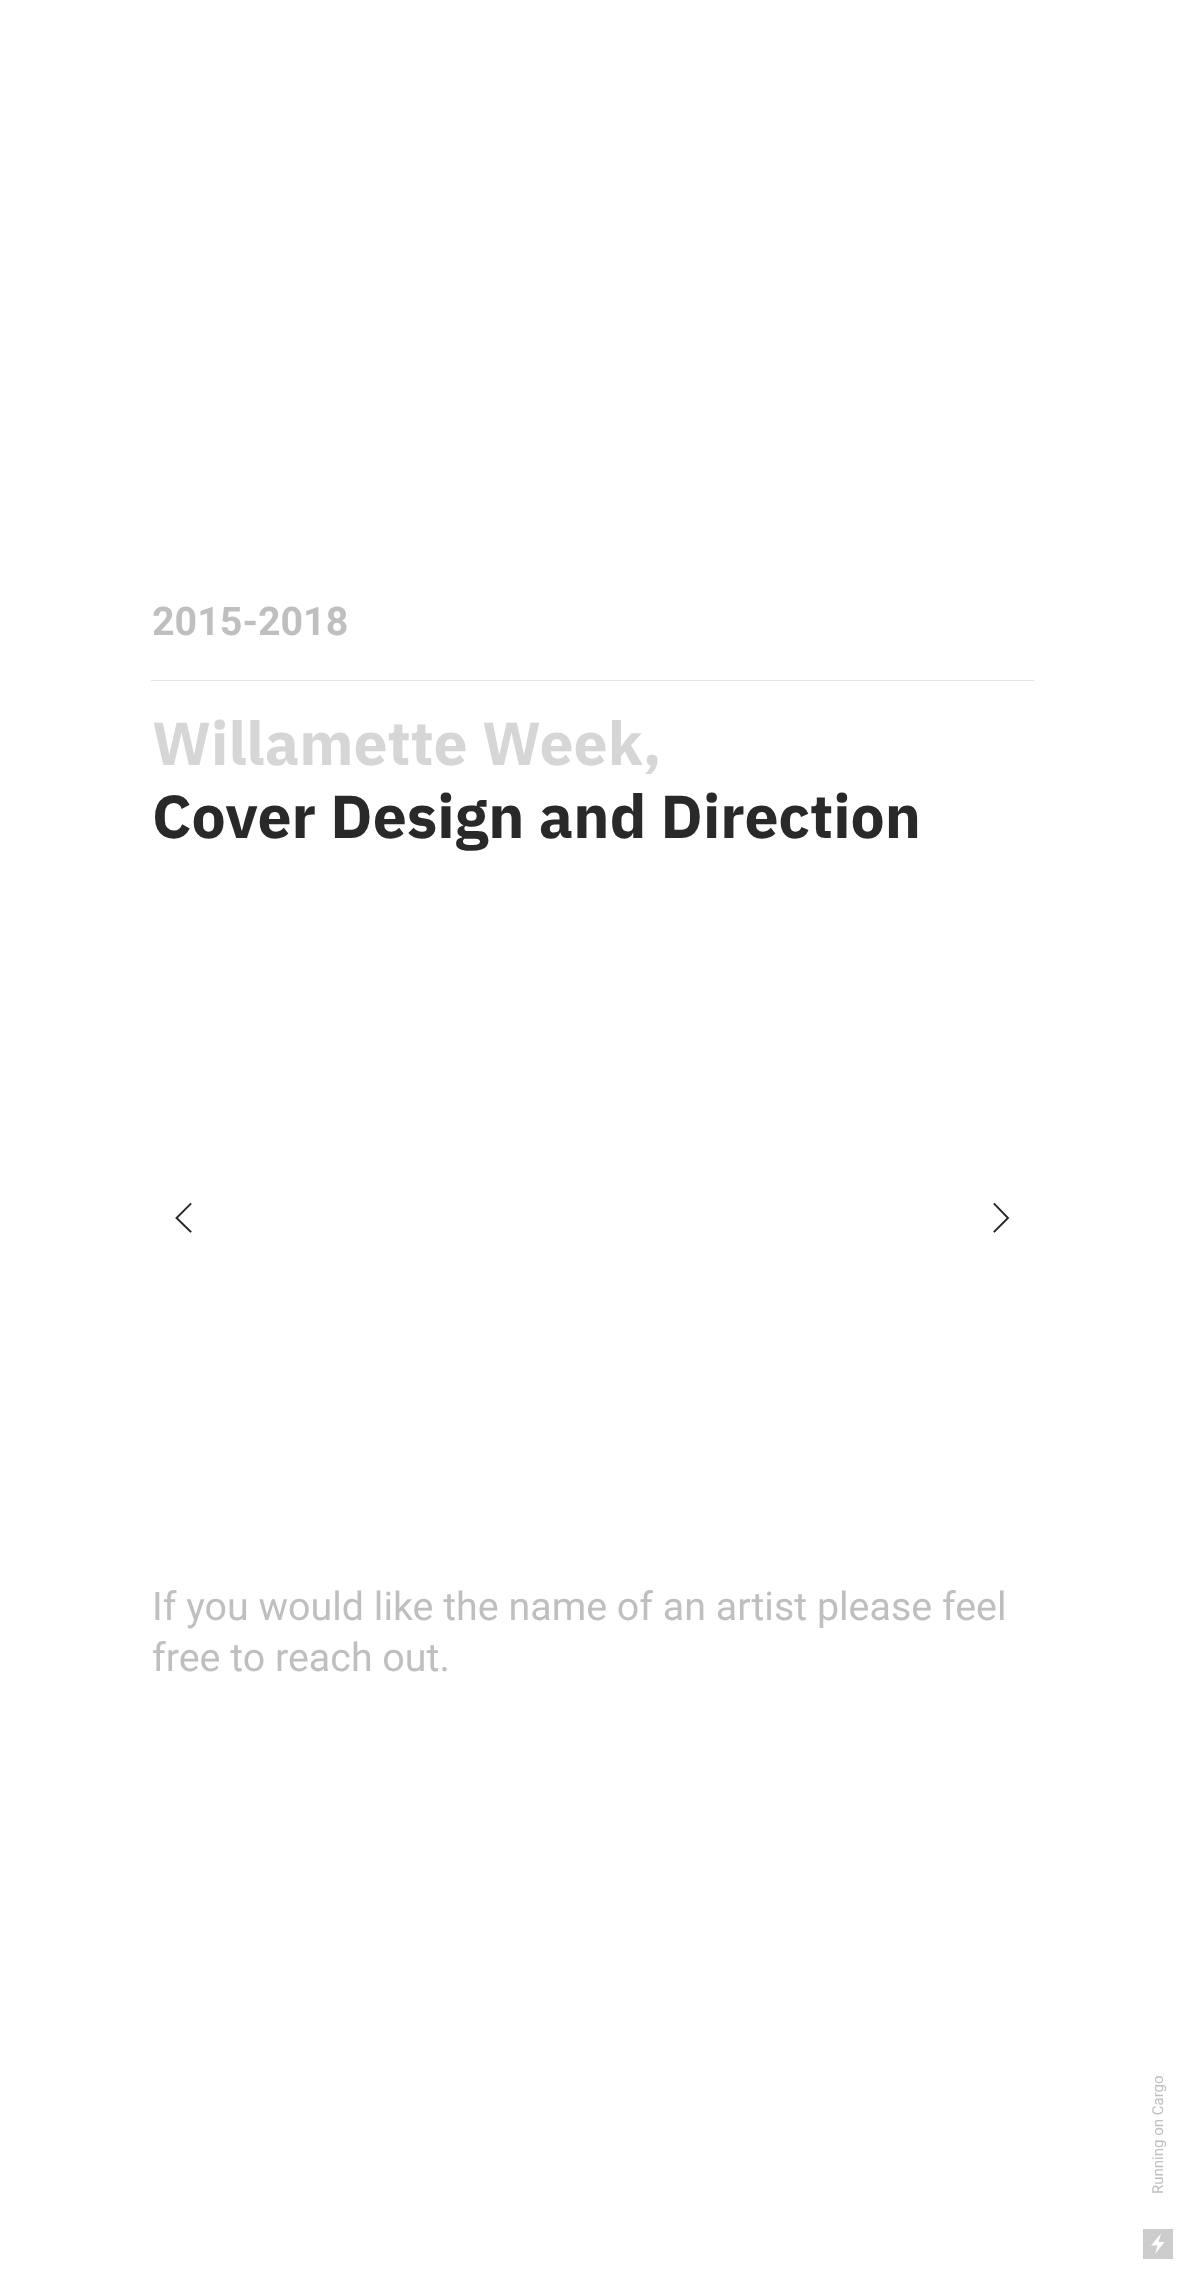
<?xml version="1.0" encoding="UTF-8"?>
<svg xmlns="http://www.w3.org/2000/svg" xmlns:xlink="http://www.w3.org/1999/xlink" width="1185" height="2271">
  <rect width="100%" height="100%" fill="#ffffff" />
  <rect x="151" y="680" width="883" height="1" fill="#e5e5e5" />
  <path d="M 190.5 1231.5 l -14 -13.5 l 14 -14" fill="none" stroke="#262626" stroke-width="1.9" stroke-linecap="square" />
  <path d="M 994.5 1231.5 l 13.5 -13.5 l -13.5 -14" fill="none" stroke="#262626" stroke-width="1.9" stroke-linecap="square" />
  <rect x="1143" y="2229" width="30" height="30" fill="#cccccc" />
  <path d="M 1164.5 2242 h -6 l 2.5 -8.5 l -10 12 h 6.5 l -2.5 8.5 z" fill="#ffffff" />
  <text x="152" y="635" style="font-family: Roboto; font-size: 39.4px; font-weight: bold; fill: #bfbfbf">2015-2018</text>
  <text x="152" y="765" style="font-family: IBM Plex Sans; font-size: 60.7px; font-weight: bold; fill: #d6d6d6">Willamette Week,</text>
  <text x="152" y="838" style="font-family: IBM Plex Sans; font-size: 60.7px; font-weight: bold; fill: #292929">Cover Design and Direction</text>
  <text x="152" y="1620" style="font-family: Roboto; font-size: 39.4px; fill: #bfbfbf">If you would like the name of an artist please feel</text>
  <text x="152" y="1671" style="font-family: Roboto; font-size: 39.4px; fill: #bfbfbf">free to reach out.</text>
  <text x="1163" y="2194" transform="rotate(-90 1163 2194)" style="font-family: Roboto; font-size: 15px; fill: #bfbfbf">Running on Cargo</text>
</svg>
